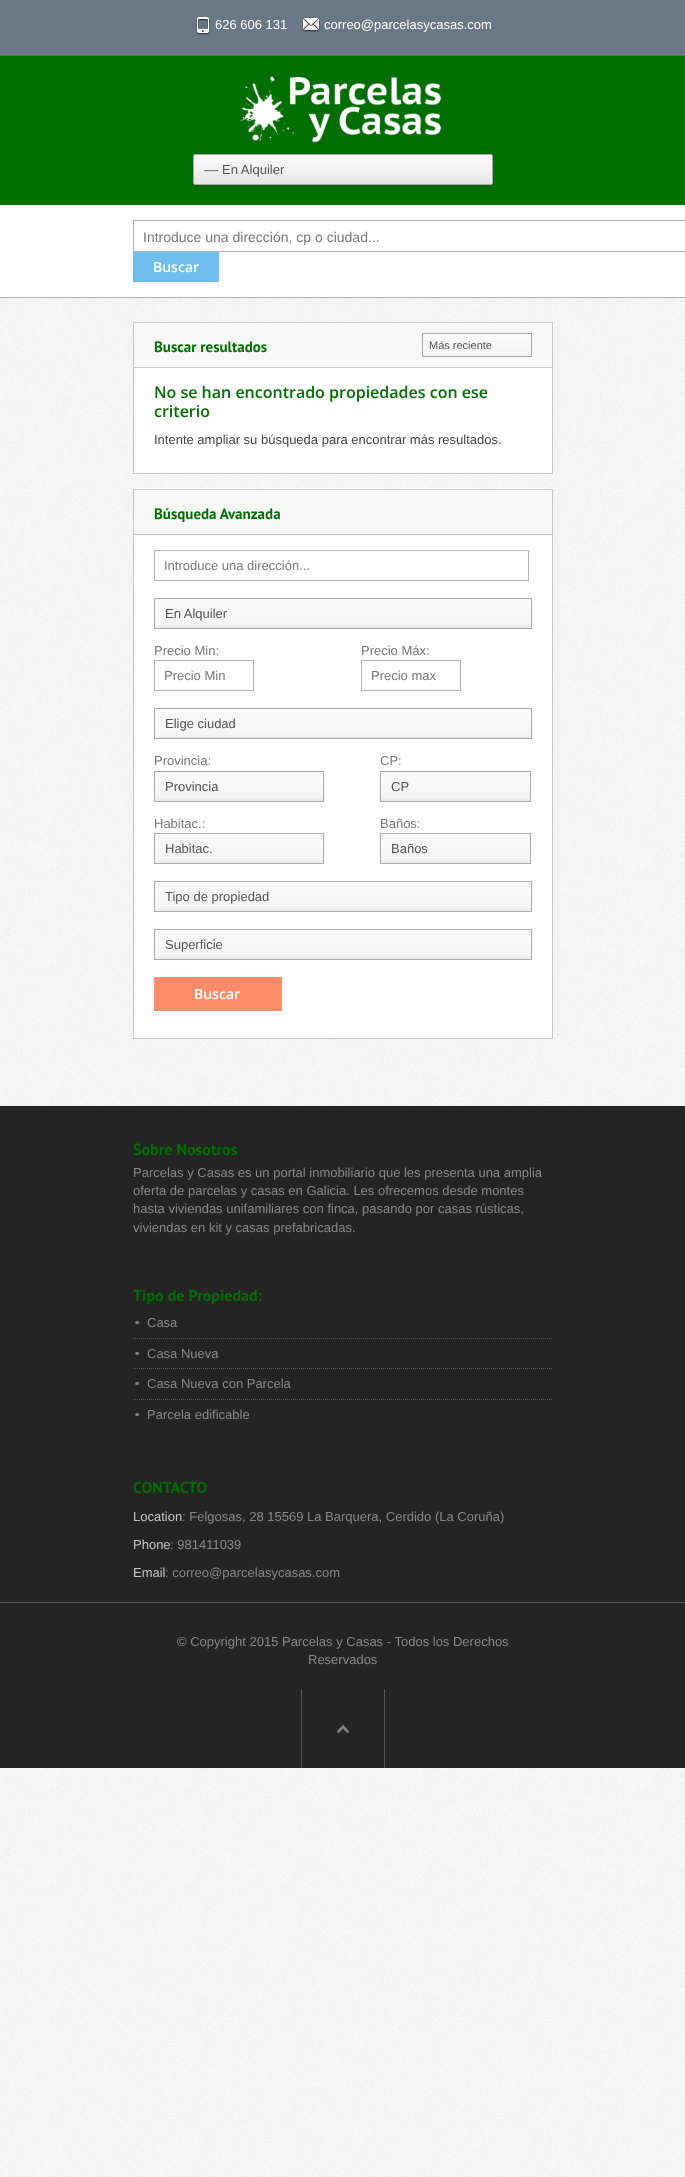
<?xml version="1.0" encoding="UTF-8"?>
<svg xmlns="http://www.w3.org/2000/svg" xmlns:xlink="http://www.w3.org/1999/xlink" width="685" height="2177">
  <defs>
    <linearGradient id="g1" gradientUnits="userSpaceOnUse" x1="343" y1="155" x2="343" y2="184"><stop offset="0" stop-color="#fafafa" /><stop offset="0.4" stop-color="#f4f4f4" /><stop offset="1" stop-color="#e5e5e5" /></linearGradient>
    <linearGradient id="g2" gradientUnits="userSpaceOnUse" x1="477" y1="334" x2="477" y2="356"><stop offset="0" stop-color="#fafafa" /><stop offset="0.9" stop-color="#f4f4f4" /><stop offset="1" stop-color="#e8e8e8" /></linearGradient>
    <linearGradient id="g3" gradientUnits="userSpaceOnUse" x1="343" y1="599" x2="343" y2="628"><stop offset="0" stop-color="#fafafa" /><stop offset="0.9" stop-color="#f4f4f4" /><stop offset="1" stop-color="#e8e8e8" /></linearGradient>
    <linearGradient id="g4" gradientUnits="userSpaceOnUse" x1="343" y1="709" x2="343" y2="738"><stop offset="0" stop-color="#fafafa" /><stop offset="0.9" stop-color="#f4f4f4" /><stop offset="1" stop-color="#e8e8e8" /></linearGradient>
    <linearGradient id="g5" gradientUnits="userSpaceOnUse" x1="239" y1="772" x2="239" y2="801"><stop offset="0" stop-color="#fafafa" /><stop offset="0.9" stop-color="#f4f4f4" /><stop offset="1" stop-color="#e8e8e8" /></linearGradient>
    <linearGradient id="g6" gradientUnits="userSpaceOnUse" x1="456" y1="772" x2="456" y2="801"><stop offset="0" stop-color="#fafafa" /><stop offset="0.9" stop-color="#f4f4f4" /><stop offset="1" stop-color="#e8e8e8" /></linearGradient>
    <linearGradient id="g7" gradientUnits="userSpaceOnUse" x1="239" y1="834" x2="239" y2="863"><stop offset="0" stop-color="#fafafa" /><stop offset="0.9" stop-color="#f4f4f4" /><stop offset="1" stop-color="#e8e8e8" /></linearGradient>
    <linearGradient id="g8" gradientUnits="userSpaceOnUse" x1="456" y1="834" x2="456" y2="863"><stop offset="0" stop-color="#fafafa" /><stop offset="0.9" stop-color="#f4f4f4" /><stop offset="1" stop-color="#e8e8e8" /></linearGradient>
    <linearGradient id="g9" gradientUnits="userSpaceOnUse" x1="343" y1="882" x2="343" y2="911"><stop offset="0" stop-color="#fafafa" /><stop offset="0.9" stop-color="#f4f4f4" /><stop offset="1" stop-color="#e8e8e8" /></linearGradient>
    <linearGradient id="g10" gradientUnits="userSpaceOnUse" x1="343" y1="930" x2="343" y2="959"><stop offset="0" stop-color="#fafafa" /><stop offset="0.9" stop-color="#f4f4f4" /><stop offset="1" stop-color="#e8e8e8" /></linearGradient>
  </defs>
  <rect width="100%" height="100%" fill="#ffffff" />
  <image x="0" y="298" width="685" height="1879" xlink:href="image1.png" />
  <rect width="685" height="55" fill="#697884" />
  <image x="196" y="17" width="14" height="18" xlink:href="image2.png" />
  <image x="302" y="18" width="18" height="14" xlink:href="image3.png" />
  <rect y="56" width="685" height="149" fill="#006e02" />
  <rect y="55" width="685" height="1" fill="#308a32" />
  <image x="240" y="76" width="202" height="67" xlink:href="image4.png" />
  <rect x="193" y="155" width="300" height="31" rx="2" fill="#000000" fill-opacity="0.1" filter="blur(1.5px)" />
  <rect x="194" y="155" width="298" height="29" fill="url(#g1)" />
  <rect x="193.5" y="154.5" width="299" height="30" rx="1.5" fill="none" stroke="#aaaaaa" />
  <rect y="297" width="685" height="1" fill="#b2b2b2" />
  <rect x="133.5" y="220.5" width="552" height="31" fill="none" stroke="#b5b5b5" />
  <rect x="133" y="252" width="86" height="30" fill="#6fbfec" />
  <rect x="134" y="368" width="418" height="105" fill="#ffffff" />
  <rect x="133" y="322" width="420" height="1" fill="#cccccc" />
  <rect x="552" y="322" width="1" height="152" fill="#c4c4c4" />
  <rect x="133" y="473" width="420" height="1" fill="#c5c5c5" />
  <rect x="133" y="322" width="1" height="152" fill="#c4c4c4" />
  <rect x="134" y="323" width="418" height="44" fill="#f7f7f7" />
  <rect x="134" y="367" width="418" height="1" fill="#c5c5c5" />
  <rect x="423" y="334" width="108" height="22" fill="url(#g2)" />
  <rect x="422.5" y="333.5" width="109" height="23" fill="none" stroke="#aaaaaa" />
  <rect x="134" y="535" width="418" height="503" fill="#ffffff" />
  <rect x="133" y="489" width="420" height="1" fill="#cccccc" />
  <rect x="552" y="489" width="1" height="550" fill="#c4c4c4" />
  <rect x="133" y="1038" width="420" height="1" fill="#c5c5c5" />
  <rect x="133" y="489" width="1" height="550" fill="#c4c4c4" />
  <rect x="134" y="490" width="418" height="44" fill="#f7f7f7" />
  <rect x="134" y="534" width="418" height="1" fill="#c5c5c5" />
  <rect x="154.5" y="550.5" width="374" height="30" fill="none" stroke="#b5b5b5" />
  <rect x="155" y="599" width="376" height="29" fill="url(#g3)" />
  <rect x="154.5" y="598.5" width="377" height="30" fill="none" stroke="#aaaaaa" />
  <rect x="154.5" y="660.5" width="99" height="30" fill="none" stroke="#b5b5b5" />
  <rect x="361.5" y="660.5" width="99" height="30" fill="none" stroke="#b5b5b5" />
  <rect x="155" y="709" width="376" height="29" fill="url(#g4)" />
  <rect x="154.5" y="708.5" width="377" height="30" fill="none" stroke="#aaaaaa" />
  <rect x="155" y="772" width="168" height="29" fill="url(#g5)" />
  <rect x="154.5" y="771.5" width="169" height="30" fill="none" stroke="#aaaaaa" />
  <rect x="381" y="772" width="149" height="29" fill="url(#g6)" />
  <rect x="380.5" y="771.5" width="150" height="30" fill="none" stroke="#aaaaaa" />
  <rect x="155" y="834" width="168" height="29" fill="url(#g7)" />
  <rect x="154.5" y="833.5" width="169" height="30" fill="none" stroke="#aaaaaa" />
  <rect x="381" y="834" width="149" height="29" fill="url(#g8)" />
  <rect x="380.5" y="833.5" width="150" height="30" fill="none" stroke="#aaaaaa" />
  <rect x="155" y="882" width="376" height="29" fill="url(#g9)" />
  <rect x="154.5" y="881.5" width="377" height="30" fill="none" stroke="#aaaaaa" />
  <rect x="155" y="930" width="376" height="29" fill="url(#g10)" />
  <rect x="154.5" y="929.5" width="377" height="30" fill="none" stroke="#aaaaaa" />
  <rect x="154" y="977" width="128" height="34" fill="#ff8c68" />
  <rect y="1106" width="685" height="662" fill="#252425" />
  <image x="135" y="1321" width="5" height="3" xlink:href="image5.png" />
  <path d="M 133 1338.5 h 420" fill="none" stroke="#585858" stroke-dasharray="1 1" />
  <image x="135" y="1352" width="5" height="3" xlink:href="image5.png" />
  <path d="M 133 1368.5 h 420" fill="none" stroke="#585858" stroke-dasharray="1 1" />
  <image x="135" y="1382" width="5" height="3" xlink:href="image5.png" />
  <path d="M 133 1399.5 h 420" fill="none" stroke="#585858" stroke-dasharray="1 1" />
  <image x="135" y="1413" width="5" height="3" xlink:href="image5.png" />
  <rect y="1602" width="685" height="1" fill="#585858" />
  <image x="337" y="1724" width="12" height="10" xlink:href="image6.png" />
  <rect x="384" y="1689" width="1" height="79" fill="#585858" />
  <rect x="301" y="1689" width="1" height="79" fill="#585858" />
  <text x="215" y="29" style="font-family: Liberation Sans; font-size: 13px; fill: #ffffff">626 606 131</text>
  <text x="324" y="29" style="font-family: Liberation Sans; font-size: 13px; fill: #ffffff">correo@parcelasycasas.com</text>
  <text x="204" y="174" style="font-family: Liberation Sans; font-size: 13px; fill: #545454">–– En Alquiler</text>
  <text x="143" y="242" style="font-family: Liberation Sans; font-size: 14px; fill: #777777">Introduce una dirección, cp o ciudad...</text>
  <text x="153" y="272" style="font-family: Open Sans; font-size: 14px; font-weight: 600; fill: #ffffff">Buscar</text>
  <text x="154" y="352" style="font-family: PT Sans; font-size: 15px; font-weight: bold; fill: #006e02">Buscar resultados</text>
  <text x="429" y="349" style="font-family: Liberation Sans; font-size: 11px; fill: #545454">Más reciente</text>
  <text x="154" y="398" style="font-family: Open Sans; font-size: 16px; font-weight: 600; fill: #006e02">No se han encontrado propiedades con ese</text>
  <text x="154" y="417" style="font-family: Open Sans; font-size: 16px; font-weight: 600; fill: #006e02">criterio</text>
  <text x="154" y="444" style="font-family: Liberation Sans; font-size: 13px; fill: #444444">Intente ampliar su búsqueda para encontrar más resultados.</text>
  <text x="154" y="519" style="font-family: PT Sans; font-size: 15px; font-weight: bold; fill: #006e02">Búsqueda Avanzada</text>
  <text x="164" y="570" style="font-family: Liberation Sans; font-size: 13px; fill: #777777">Introduce una dirección...</text>
  <text x="165" y="618" style="font-family: Liberation Sans; font-size: 13px; fill: #545454">En Alquiler</text>
  <text x="154" y="655" style="font-family: Liberation Sans; font-size: 13px; fill: #777777">Precio Min:</text>
  <text x="164" y="680" style="font-family: Liberation Sans; font-size: 13px; fill: #777777">Precio Min</text>
  <text x="361" y="655" style="font-family: Liberation Sans; font-size: 13px; fill: #777777">Precio Máx:</text>
  <text x="371" y="680" style="font-family: Liberation Sans; font-size: 13px; fill: #777777">Precio max</text>
  <text x="165" y="728" style="font-family: Liberation Sans; font-size: 13px; fill: #545454">Elige ciudad</text>
  <text x="154" y="765" style="font-family: Liberation Sans; font-size: 13px; fill: #777777">Provincia:</text>
  <text x="165" y="791" style="font-family: Liberation Sans; font-size: 13px; fill: #545454">Provincia</text>
  <text x="380" y="765" style="font-family: Liberation Sans; font-size: 13px; fill: #777777">CP:</text>
  <text x="391" y="791" style="font-family: Liberation Sans; font-size: 13px; fill: #545454">CP</text>
  <text x="154" y="828" style="font-family: Liberation Sans; font-size: 13px; fill: #777777">Habitac.:</text>
  <text x="165" y="853" style="font-family: Liberation Sans; font-size: 13px; fill: #545454">Habitac.</text>
  <text x="380" y="828" style="font-family: Liberation Sans; font-size: 13px; fill: #777777">Baños:</text>
  <text x="391" y="853" style="font-family: Liberation Sans; font-size: 13px; fill: #545454">Baños</text>
  <text x="165" y="901" style="font-family: Liberation Sans; font-size: 13px; fill: #545454">Tipo de propiedad</text>
  <text x="165" y="949" style="font-family: Liberation Sans; font-size: 13px; fill: #545454">Superficie</text>
  <text x="194" y="999" style="font-family: Open Sans; font-size: 14px; font-weight: 600; fill: #ffffff">Buscar</text>
  <text x="133" y="1155" style="font-family: PT Sans; font-size: 16px; font-weight: bold; fill: #006e02">Sobre Nosotros</text>
  <text x="133" y="1177" style="font-family: Liberation Sans; font-size: 13px; fill: #888888">Parcelas y Casas es un portal inmobiliario que les presenta una amplia</text>
  <text x="133" y="1195" style="font-family: Liberation Sans; font-size: 13px; fill: #888888">oferta de parcelas y casas en Galicia. Les ofrecemos desde montes</text>
  <text x="133" y="1213" style="font-family: Liberation Sans; font-size: 13px; fill: #888888">hasta viviendas unifamiliares con finca, pasando por casas rústicas,</text>
  <text x="133" y="1232" style="font-family: Liberation Sans; font-size: 13px; fill: #888888">viviendas en kit y casas prefabricadas.</text>
  <text x="133" y="1301" style="font-family: PT Sans; font-size: 16px; font-weight: bold; fill: #006e02">Tipo de Propiedad:</text>
  <text x="147" y="1327" style="font-family: Liberation Sans; font-size: 13px; fill: #888888">Casa</text>
  <text x="147" y="1358" style="font-family: Liberation Sans; font-size: 13px; fill: #888888">Casa Nueva</text>
  <text x="147" y="1388" style="font-family: Liberation Sans; font-size: 13px; fill: #888888">Casa Nueva con Parcela</text>
  <text x="147" y="1419" style="font-family: Liberation Sans; font-size: 13px; fill: #888888">Parcela edificable</text>
  <text x="133" y="1493" style="font-family: PT Sans; font-size: 16px; font-weight: bold; fill: #006e02">CONTACTO</text>
  <text x="133" y="1521" style="font-family: Liberation Sans; font-size: 13px; fill: #c5c5c5">Location</text>
  <text x="182" y="1521" style="font-family: Liberation Sans; font-size: 13px; fill: #888888">: Felgosas, 28 15569 La Barquera, Cerdido (La Coruña)</text>
  <text x="133" y="1549" style="font-family: Liberation Sans; font-size: 13px; fill: #c5c5c5">Phone</text>
  <text x="170" y="1549" style="font-family: Liberation Sans; font-size: 13px; fill: #888888">: 981411039</text>
  <text x="133" y="1577" style="font-family: Liberation Sans; font-size: 13px; fill: #c5c5c5">Email</text>
  <text x="165" y="1577" style="font-family: Liberation Sans; font-size: 13px; fill: #888888">: correo@parcelasycasas.com</text>
  <text x="177" y="1646" style="font-family: Liberation Sans; font-size: 13px; fill: #888888">© Copyright 2015 Parcelas y Casas - Todos los Derechos</text>
  <text x="308" y="1664" style="font-family: Liberation Sans; font-size: 13px; fill: #888888">Reservados</text>
</svg>
